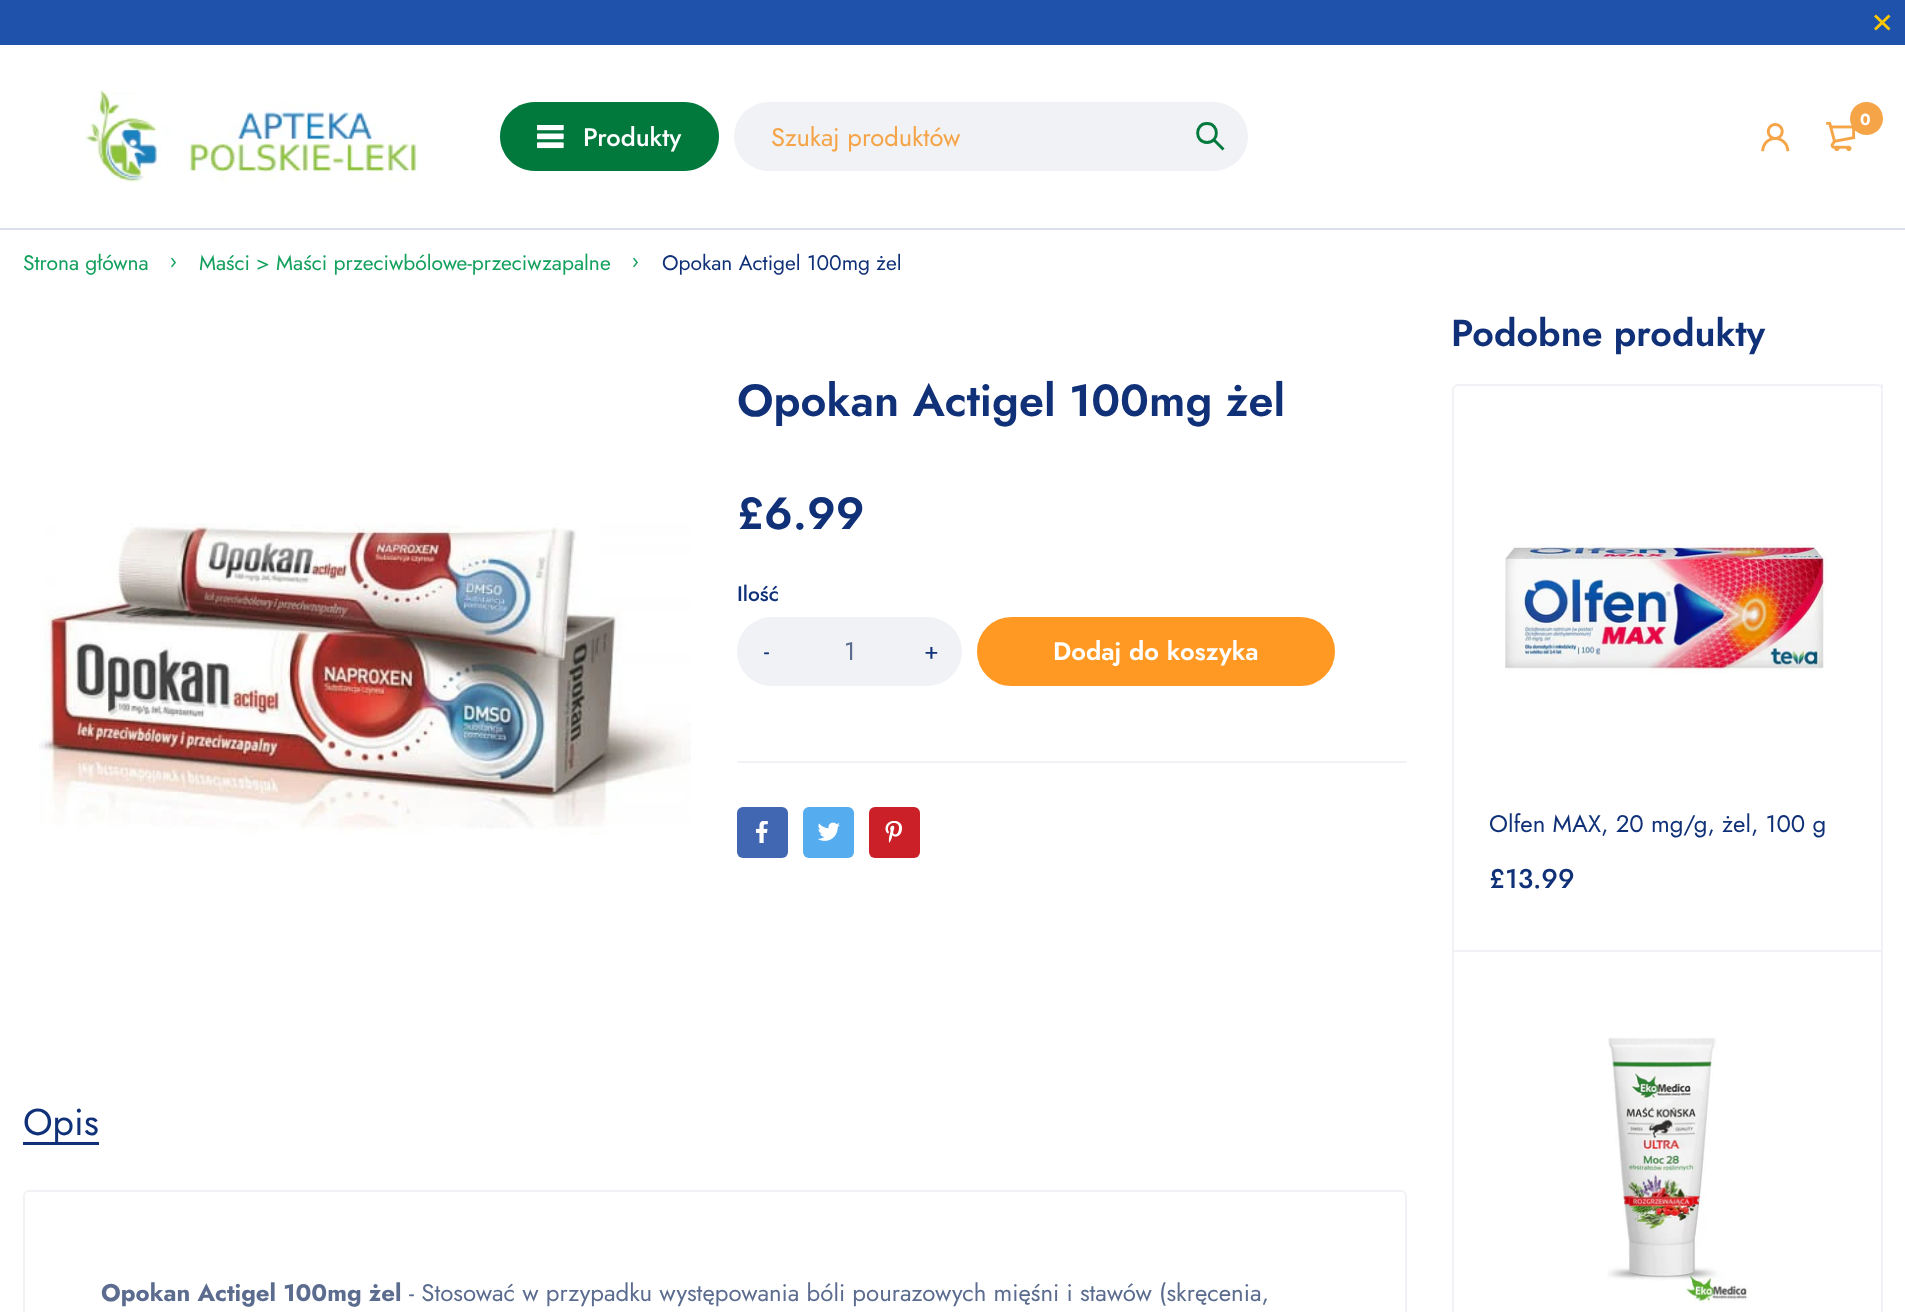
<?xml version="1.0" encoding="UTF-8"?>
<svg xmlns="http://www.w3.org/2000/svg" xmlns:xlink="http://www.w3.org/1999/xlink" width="1905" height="1312">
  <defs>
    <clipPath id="clip1"><rect x="1490" y="422" width="354" height="490" /></clipPath>
  </defs>
  <rect width="100%" height="100%" fill="#ffffff" />
  <rect width="1905" height="45" fill="#1f53ab" />
  <path d="M 1889.5 15.5 l -14.5 14 m 0 -14 l 14.5 14" fill="none" stroke="#ffc800" stroke-width="2.9" />
  <image x="85" y="90" width="333" height="93" xlink:href="image1.png" />
  <image x="1826" y="122" width="30" height="30" xlink:href="image2.png" />
  <circle cx="1866.5" cy="118.5" r="16.5" fill="#f5a447" />
  <image x="1761" y="123" width="29" height="29" xlink:href="image3.png" />
  <path d="M 534.5 102 h 49.5 v 69 h -49.5 c -19 0 -34.5 -15.5 -34.5 -34.5 c 0 -19 15.5 -34.5 34.5 -34.5 z" fill="#01793d" />
  <image x="537" y="125" width="27" height="24" xlink:href="image4.png" />
  <path d="M 584 102 h 100.5 c 19 0 34.5 15.5 34.5 34.5 c 0 19 -15.5 34.5 -34.5 34.5 h -100.5 z" fill="#01793d" />
  <rect x="734" y="102" width="514" height="69" rx="34.5" fill="#f0f2f5" />
  <path d="M 1207 142.5 c 12.5 0 12.5 -19 0 -19 c -12.5 0 -12.5 19 0 19 z m 16.5 7 l -10 -10" fill="none" stroke="#01793d" stroke-width="2.9" />
  <rect y="228" width="1905" height="2" fill="#dbe0eb" />
  <image x="171" y="257" width="5" height="11" xlink:href="image5.png" />
  <image x="633" y="257" width="5" height="11" xlink:href="image5.png" />
  <image x="39" y="523" width="652" height="312" xlink:href="image6.png" />
  <rect x="737" y="617" width="225" height="69" rx="34.5" fill="#f0f2f5" />
  <rect x="978" y="618" width="356" height="67" rx="33.5" fill="#ff9923" stroke="#ff9923" stroke-width="2" />
  <rect x="737" y="761" width="670" height="2" fill="#f0f2f5" />
  <rect x="737" y="807" width="51" height="51" rx="6" fill="#4267b2" />
  <image x="756" y="821" width="12" height="22" xlink:href="image7.png" />
  <rect x="803" y="807" width="51" height="51" rx="6" fill="#55acee" />
  <image x="818" y="822" width="22" height="19" xlink:href="image8.png" />
  <rect x="869" y="807" width="51" height="51" rx="6" fill="#cb2027" />
  <image x="885" y="821" width="18" height="22" xlink:href="image9.png" />
  <rect x="23" y="1142" width="76" height="3" fill="#103178" />
  <rect x="24" y="1191" width="1382" height="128" rx="5" fill="none" stroke="#f0f2f5" stroke-width="2" />
  <rect x="1881" y="384" width="2" height="6" fill="#f0f2f5" />
  <rect x="1452" y="950" width="431" height="2" fill="#f0f2f5" />
  <image x="1505" y="544" width="322" height="130" xlink:href="image10.png" />
  <image x="1607" y="1037" width="142" height="266" xlink:href="image11.png" />
  <rect x="1453" y="385" width="429" height="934" rx="5" fill="none" stroke="#f0f2f5" stroke-width="2" />
  <text x="1860" y="125" style="font-family: Jost; font-size: 16px; font-weight: bold; fill: #ffffff">0</text>
  <text x="583" y="146" style="font-family: Jost; font-size: 25.5px; font-weight: 500; fill: #ffffff">Produkty</text>
  <text x="771" y="146" style="font-family: Jost; font-size: 25.5px; fill: #f5a447">Szukaj produktów</text>
  <text x="23" y="270" style="font-family: Jost; font-size: 21px; fill: #12a05c">Strona główna</text>
  <text x="199" y="270" style="font-family: Jost; font-size: 21px; fill: #12a05c">Maści &gt; Maści przeciwbólowe-przeciwzapalne</text>
  <text x="662" y="270" style="font-family: Jost; font-size: 21px; fill: #103178">Opokan Actigel 100mg żel</text>
  <text x="737" y="416" style="font-family: Jost; font-size: 45px; font-weight: 600; fill: #103178">Opokan Actigel 100mg żel</text>
  <text x="737" y="529" style="font-family: Jost; font-size: 45px; font-weight: 600; fill: #103178">£6.99</text>
  <text x="737" y="601" style="font-family: Jost; font-size: 21px; font-weight: 500; fill: #103178">Ilość</text>
  <text x="764" y="659" style="font-family: Jost; font-size: 24px; fill: #103178">-</text>
  <text x="844" y="660" style="font-family: Jost; font-size: 25.5px; fill: #5b6c8f">1</text>
  <text x="924" y="659" style="font-family: Jost; font-size: 24px; fill: #103178">+</text>
  <text x="1053" y="660" style="font-family: Jost; font-size: 25.5px; font-weight: 600; fill: #ffffff">Dodaj do koszyka</text>
  <text x="23" y="1135" style="font-family: Jost; font-size: 37.5px; fill: #103178">Opis</text>
  <text x="101" y="1301" style="font-family: Jost; font-size: 24px; font-weight: bold; fill: #5b6c8f">Opokan Actigel 100mg żel</text>
  <text x="409" y="1301" style="font-family: Jost; font-size: 24px; fill: #5b6c8f">- Stosować w przypadku występowania bóli pourazowych mięśni i stawów (skręcenia,</text>
  <text x="1451" y="346" style="font-family: Jost; font-size: 37.5px; font-weight: 600; fill: #103178">Podobne produkty</text>
  <g clip-path="url(#clip1)">
    <text x="1489" y="832" style="font-family: Jost; font-size: 24px; fill: #103178">Olfen MAX, 20 mg/g, żel, 100 g</text>
  </g>
  <text x="1489" y="888" style="font-family: Jost; font-size: 27px; font-weight: 500; fill: #103178">£13.99</text>
</svg>
